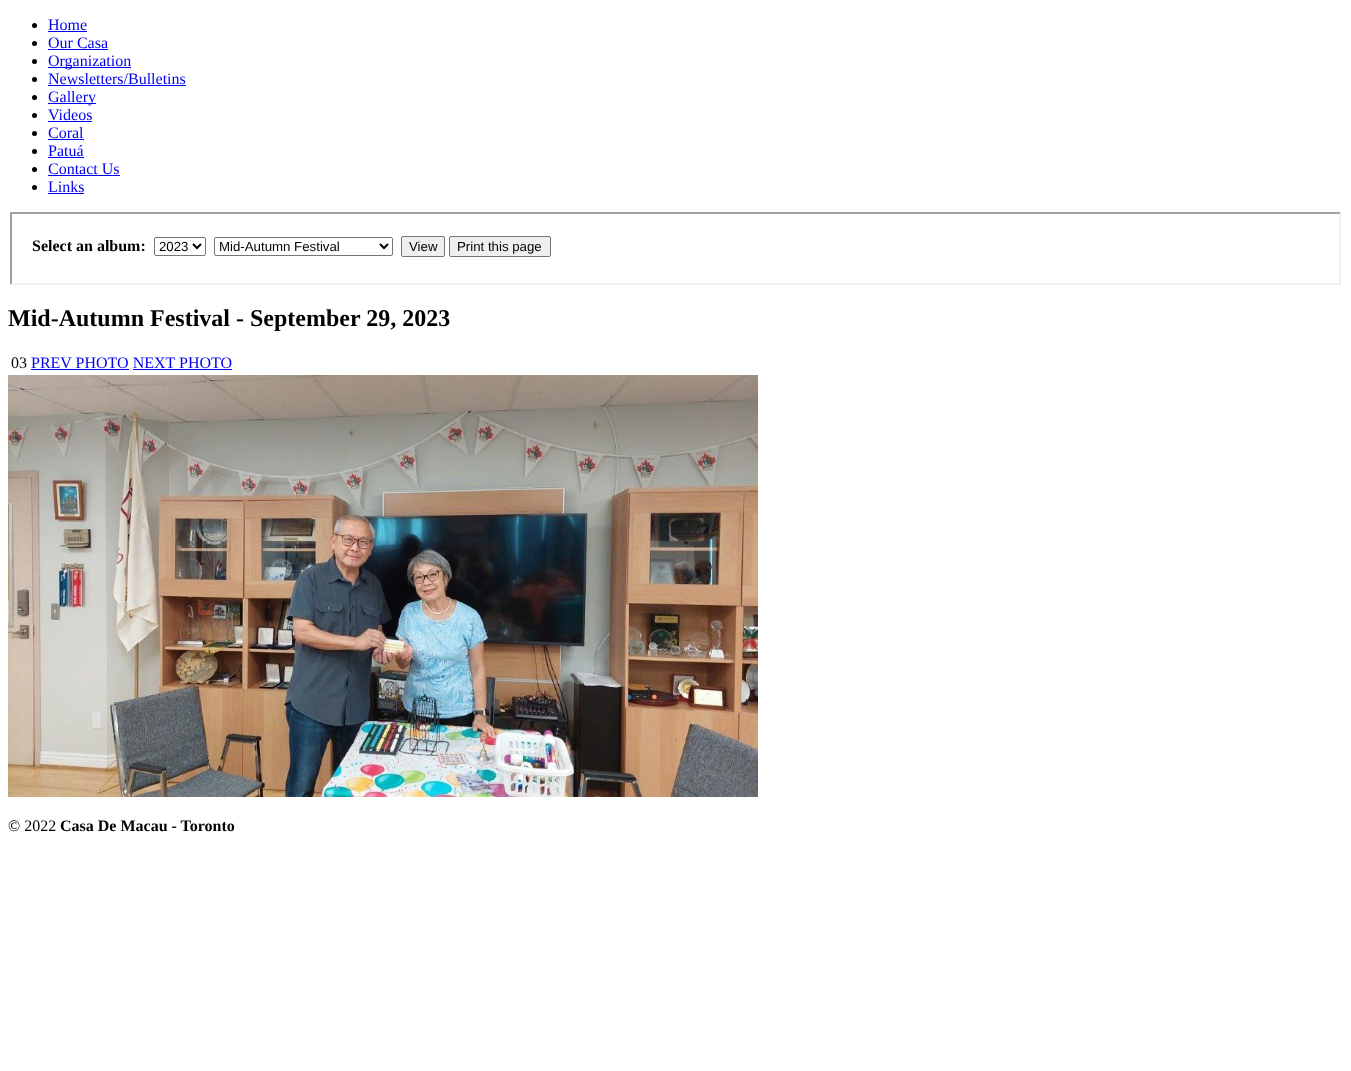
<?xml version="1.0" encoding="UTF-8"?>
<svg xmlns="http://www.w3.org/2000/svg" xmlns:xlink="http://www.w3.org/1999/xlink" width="1351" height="1071">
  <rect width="100%" height="100%" fill="#ffffff" />
  <circle cx="34.5" cy="25.5" r="2.5" fill="#000000" />
  <rect x="48" y="31" width="39" height="1" fill="#0000ee" />
  <circle cx="34.5" cy="43.5" r="2.5" fill="#000000" />
  <rect x="48" y="49" width="60" height="1" fill="#0000ee" />
  <circle cx="34.5" cy="61.5" r="2.5" fill="#000000" />
  <rect x="48" y="67" width="83" height="1" fill="#0000ee" />
  <circle cx="34.5" cy="79.5" r="2.5" fill="#000000" />
  <rect x="48" y="85" width="138" height="1" fill="#0000ee" />
  <circle cx="34.5" cy="97.5" r="2.5" fill="#000000" />
  <rect x="48" y="103" width="48" height="1" fill="#0000ee" />
  <circle cx="34.5" cy="115.5" r="2.5" fill="#000000" />
  <rect x="48" y="121" width="44" height="1" fill="#0000ee" />
  <circle cx="34.5" cy="133.5" r="2.5" fill="#000000" />
  <rect x="48" y="139" width="36" height="1" fill="#0000ee" />
  <circle cx="34.5" cy="151.5" r="2.5" fill="#000000" />
  <rect x="48" y="157" width="36" height="1" fill="#0000ee" />
  <circle cx="34.5" cy="169.5" r="2.5" fill="#000000" />
  <rect x="48" y="175" width="72" height="1" fill="#0000ee" />
  <circle cx="34.5" cy="187.5" r="2.5" fill="#000000" />
  <rect x="48" y="193" width="36" height="1" fill="#0000ee" />
  <path d="M 10 212 h 1331 l -2 2 h -1327 z" fill="#9f9f9f" />
  <path d="M 1341 212 v 73 l -2 -2 v -69 z" fill="#efefef" />
  <path d="M 1341 285 h -1331 l 2 -2 h 1327 z" fill="#efefef" />
  <path d="M 10 285 v -73 l 2 2 v 69 z" fill="#9f9f9f" />
  <rect x="154.5" y="237.5" width="51" height="18" rx="1.5" fill="none" stroke="#767676" />
  <path d="M 193 244 l 4 4 l 4 -4" fill="none" stroke="#000000" stroke-width="2" />
  <rect x="214.5" y="237.5" width="178" height="18" rx="1.5" fill="none" stroke="#767676" />
  <path d="M 380 244 l 4 4 l 4 -4" fill="none" stroke="#000000" stroke-width="2" />
  <rect x="401.5" y="236.5" width="43" height="20" rx="1.5" fill="#efefef" stroke="#767676" />
  <rect x="449.5" y="236.5" width="101" height="20" rx="1.5" fill="#efefef" stroke="#767676" />
  <rect x="31" y="369" width="98" height="1" fill="#0000ee" />
  <rect x="133" y="369" width="99" height="1" fill="#0000ee" />
  <image x="8" y="375" width="750" height="422" xlink:href="image1.png" />
  <text x="48" y="30" style="font-family: Liberation Serif; font-size: 16px; fill: #0000ee">Home</text>
  <text x="48" y="48" style="font-family: Liberation Serif; font-size: 16px; fill: #0000ee">Our Casa</text>
  <text x="48" y="66" style="font-family: Liberation Serif; font-size: 16px; fill: #0000ee">Organization</text>
  <text x="48" y="84" style="font-family: Liberation Serif; font-size: 16px; fill: #0000ee">Newsletters/Bulletins</text>
  <text x="48" y="102" style="font-family: Liberation Serif; font-size: 16px; fill: #0000ee">Gallery</text>
  <text x="48" y="120" style="font-family: Liberation Serif; font-size: 16px; fill: #0000ee">Videos</text>
  <text x="48" y="138" style="font-family: Liberation Serif; font-size: 16px; fill: #0000ee">Coral</text>
  <text x="48" y="156" style="font-family: Liberation Serif; font-size: 16px; fill: #0000ee">Patuá</text>
  <text x="48" y="174" style="font-family: Liberation Serif; font-size: 16px; fill: #0000ee">Contact Us</text>
  <text x="48" y="192" style="font-family: Liberation Serif; font-size: 16px; fill: #0000ee">Links</text>
  <text x="32" y="251" style="font-family: Liberation Serif; font-size: 16px; font-weight: bold; fill: #000000">Select an album:</text>
  <text x="159" y="251" style="font-family: Liberation Sans; font-size: 13.25px; fill: #000000">2023</text>
  <text x="219" y="251" style="font-family: Liberation Sans; font-size: 13.25px; fill: #000000">Mid-Autumn Festival</text>
  <text x="409" y="251" style="font-family: Liberation Sans; font-size: 13.25px; fill: #000000">View</text>
  <text x="457" y="251" style="font-family: Liberation Sans; font-size: 13.25px; fill: #000000">Print this page</text>
  <text x="8" y="326" style="font-family: Liberation Serif; font-size: 24px; font-weight: bold; fill: #000000">Mid-Autumn Festival - September 29, 2023</text>
  <text x="11" y="368" style="font-family: Liberation Serif; font-size: 16px; fill: #000000">03</text>
  <text x="31" y="368" style="font-family: Liberation Serif; font-size: 16px; fill: #0000ee">PREV PHOTO NEXT PHOTO</text>
  <text x="8" y="831" style="font-family: Liberation Serif; font-size: 16px; fill: #000000">© 2022</text>
  <text x="60" y="831" style="font-family: Liberation Serif; font-size: 16px; font-weight: bold; fill: #000000">Casa De Macau - Toronto</text>
</svg>
